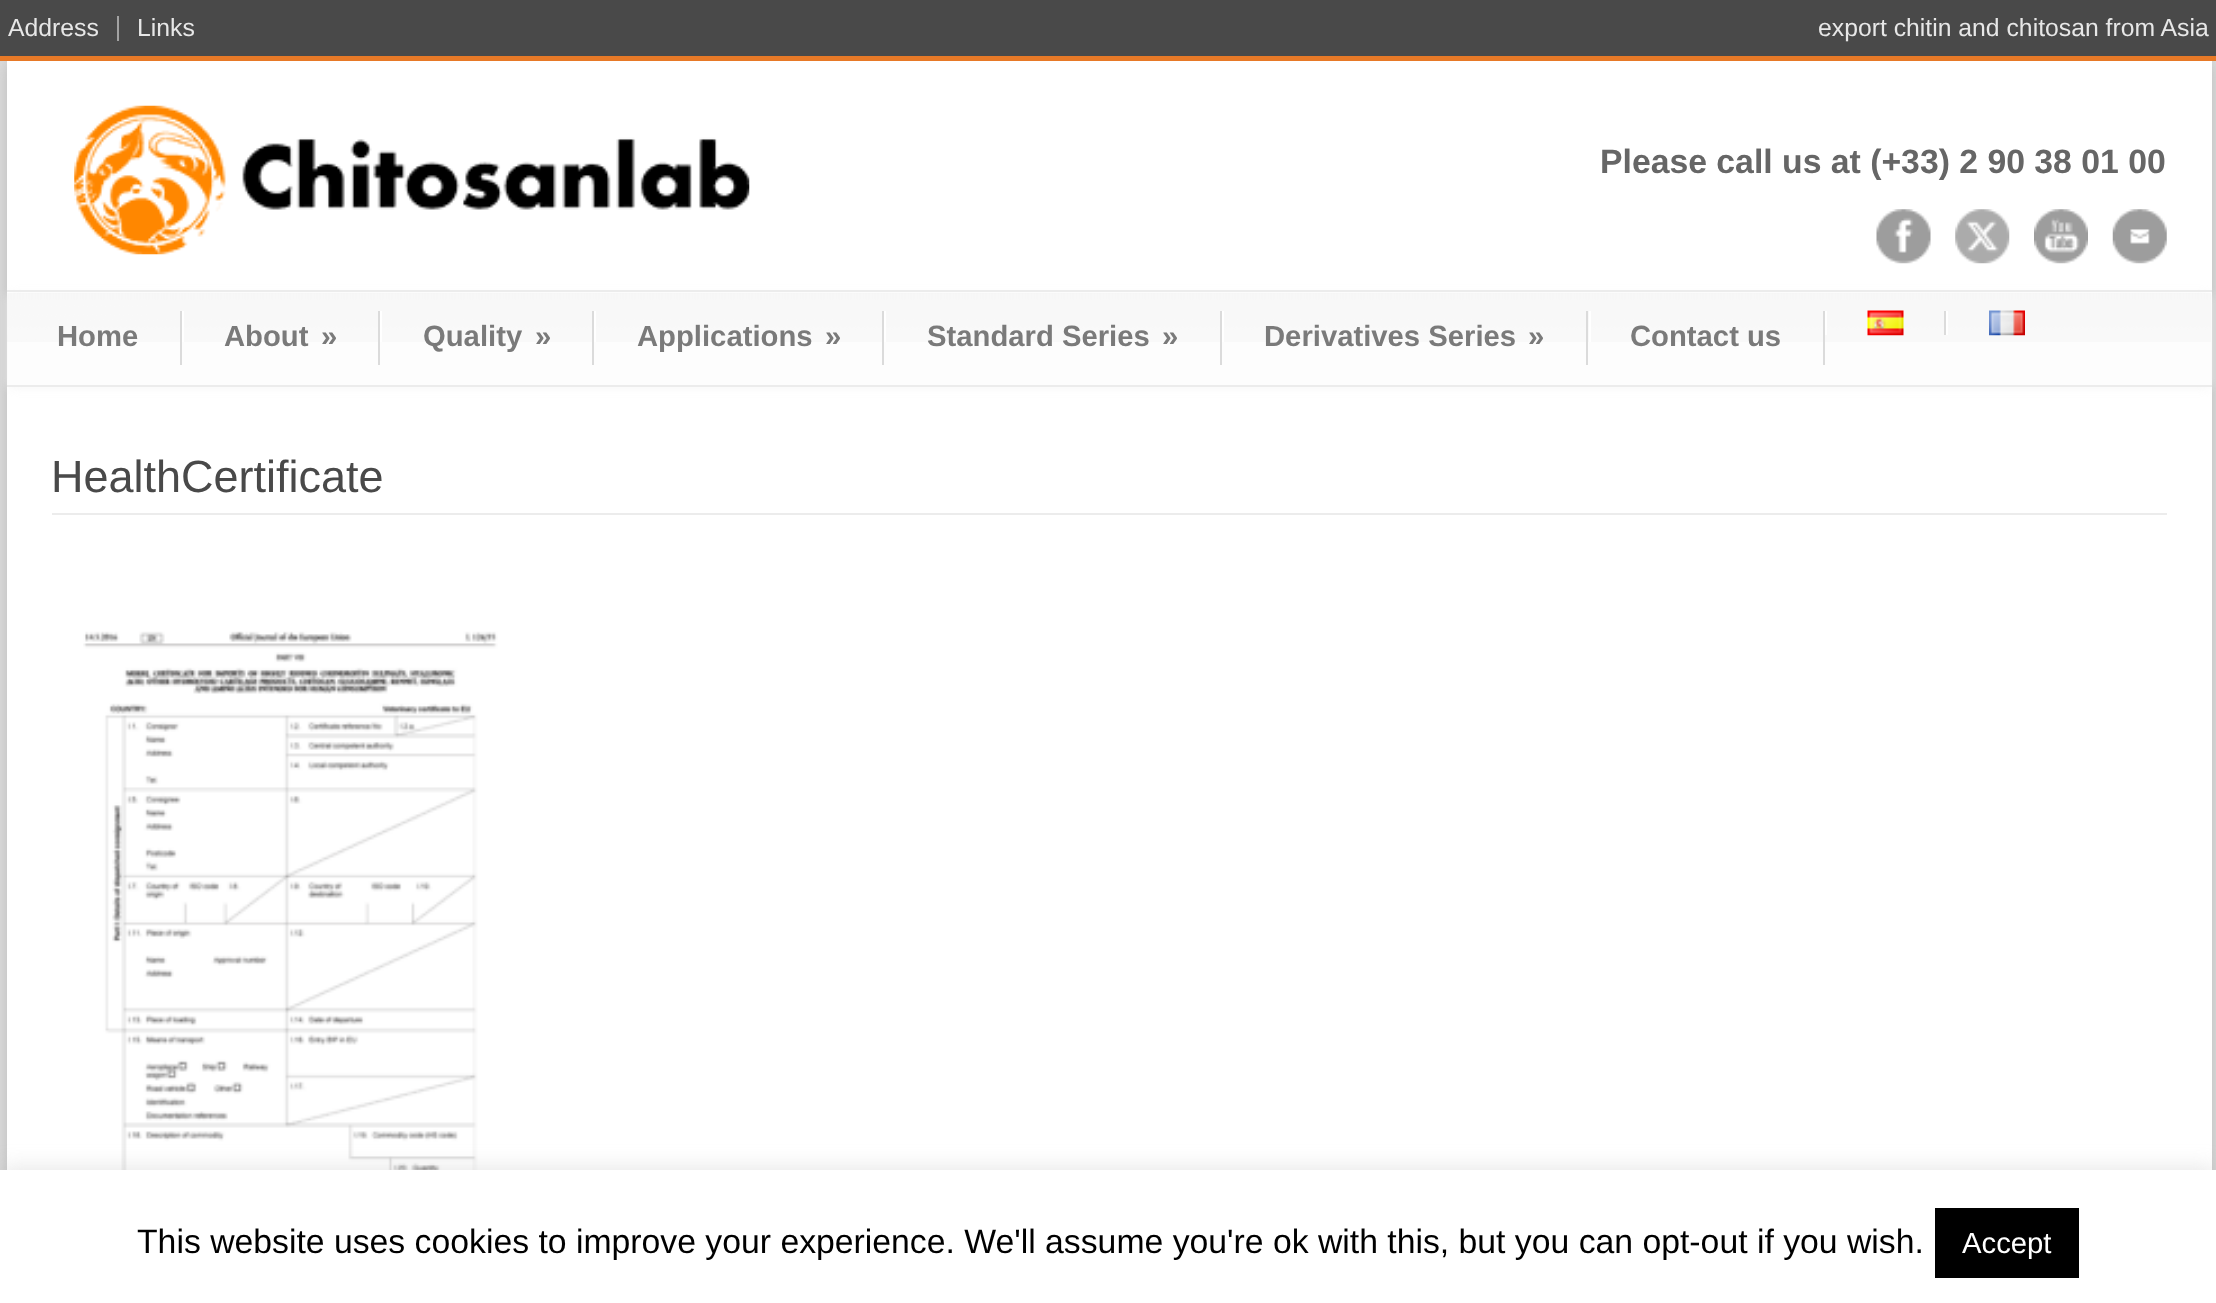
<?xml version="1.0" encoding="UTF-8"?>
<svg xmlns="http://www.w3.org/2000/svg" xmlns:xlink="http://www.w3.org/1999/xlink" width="2216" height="1303">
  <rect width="100%" height="100%" fill="#dddddd" />
  <rect x="7" y="61" width="2205" height="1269" fill="#bbbbbb" filter="blur(9px)" />
  <rect width="2216" height="56" fill="#494949" />
  <rect x="117" y="16" width="2" height="25" fill="#a2a2a2" />
  <rect y="56" width="2216" height="5" fill="#e77927" />
  <rect x="7" y="61" width="2205" height="1109" fill="#ffffff" />
  <image x="74" y="105" width="676" height="150" xlink:href="image1.png" />
  <image x="1876" y="209" width="55" height="55" xlink:href="image2.png" />
  <image x="1955" y="209" width="55" height="55" xlink:href="image3.png" />
  <image x="2034" y="209" width="54" height="55" xlink:href="image4.png" />
  <image x="2112" y="209" width="55" height="55" xlink:href="image5.png" />
  <rect x="9" y="295" width="2201" height="92" fill="#f5f5f5" filter="blur(5.5px)" />
  <rect x="8" y="294" width="2203" height="91" fill="#fdfdfd" />
  <image x="7" y="293" width="2204" height="49" xlink:href="image6.png" />
  <rect x="7" y="290" width="2205" height="2" fill="#ececec" />
  <rect x="7" y="385" width="2205" height="2" fill="#ececec" />
  <rect x="180" y="311" width="2" height="54" fill="#dbdbdb" />
  <rect x="378" y="311" width="2" height="54" fill="#dbdbdb" />
  <rect x="182" y="311" width="2" height="31" fill="#ffffff" />
  <rect x="592" y="311" width="2" height="54" fill="#dbdbdb" />
  <rect x="380" y="311" width="2" height="31" fill="#ffffff" />
  <rect x="882" y="311" width="2" height="54" fill="#dbdbdb" />
  <rect x="594" y="311" width="2" height="31" fill="#ffffff" />
  <rect x="1220" y="311" width="2" height="54" fill="#dbdbdb" />
  <rect x="884" y="311" width="2" height="31" fill="#ffffff" />
  <rect x="1586" y="311" width="2" height="54" fill="#dbdbdb" />
  <rect x="1222" y="311" width="2" height="31" fill="#ffffff" />
  <rect x="1823" y="311" width="2" height="54" fill="#dbdbdb" />
  <rect x="1589" y="311" width="2" height="31" fill="#ffffff" />
  <rect x="1944" y="311" width="2" height="24" fill="#dbdbdb" />
  <rect x="1825" y="311" width="2" height="24" fill="#ffffff" />
  <image x="1867" y="310" width="37" height="26" xlink:href="image7.png" />
  <rect x="1946" y="311" width="2" height="24" fill="#ffffff" />
  <image x="1989" y="310" width="36" height="26" xlink:href="image8.png" />
  <rect x="52" y="513" width="2115" height="2" fill="#ececec" />
  <image x="83" y="631" width="415" height="539" xlink:href="image9.png" />
  <rect y="1168" width="2216" height="135" fill="#acabab" fill-opacity="0.3" filter="blur(11px)" />
  <rect y="1170" width="2216" height="133" fill="#ffffff" />
  <rect x="1935" y="1208" width="144" height="70" fill="#000000" />
  <text x="8" y="36" style="font-family: Liberation Sans; font-size: 24.75px; fill: #e7e7e7">Address</text>
  <text x="137" y="36" style="font-family: Liberation Sans; font-size: 24.75px; fill: #e7e7e7">Links</text>
  <text x="1818" y="36" style="font-family: Liberation Sans; font-size: 24.75px; fill: #e7e7e7">export chitin and chitosan from Asia</text>
  <text x="1600" y="173" style="font-family: Liberation Sans; font-size: 33.75px; font-weight: bold; fill: #666666">Please call us at (+33) 2 90 38 01 00</text>
  <text x="57" y="346" style="font-family: Liberation Sans; font-size: 29.25px; font-weight: bold; fill: #7a7a7a">Home</text>
  <text x="224" y="346" style="font-family: Liberation Sans; font-size: 29.25px; font-weight: bold; fill: #7a7a7a">About</text>
  <text x="321" y="346" style="font-family: Liberation Sans; font-size: 29.25px; font-weight: bold; fill: #7a7a7a">»</text>
  <text x="423" y="346" style="font-family: Liberation Sans; font-size: 29.25px; font-weight: bold; fill: #7a7a7a">Quality</text>
  <text x="535" y="346" style="font-family: Liberation Sans; font-size: 29.25px; font-weight: bold; fill: #7a7a7a">»</text>
  <text x="637" y="346" style="font-family: Liberation Sans; font-size: 29.25px; font-weight: bold; fill: #7a7a7a">Applications</text>
  <text x="825" y="346" style="font-family: Liberation Sans; font-size: 29.25px; font-weight: bold; fill: #7a7a7a">»</text>
  <text x="927" y="346" style="font-family: Liberation Sans; font-size: 29.25px; font-weight: bold; fill: #7a7a7a">Standard Series</text>
  <text x="1162" y="346" style="font-family: Liberation Sans; font-size: 29.25px; font-weight: bold; fill: #7a7a7a">»</text>
  <text x="1264" y="346" style="font-family: Liberation Sans; font-size: 29.25px; font-weight: bold; fill: #7a7a7a">Derivatives Series</text>
  <text x="1528" y="346" style="font-family: Liberation Sans; font-size: 29.25px; font-weight: bold; fill: #7a7a7a">»</text>
  <text x="1630" y="346" style="font-family: Liberation Sans; font-size: 29.25px; font-weight: bold; fill: #7a7a7a">Contact us</text>
  <text x="51" y="492" style="font-family: Liberation Sans; font-size: 45px; fill: #494949">HealthCertificate</text>
  <text x="137" y="1253" style="font-family: Liberation Sans; font-size: 33.75px; fill: #000000">This website uses cookies to improve your experience. We'll assume you're ok with this, but you can opt-out if you wish.</text>
  <text x="1962" y="1253" style="font-family: Liberation Sans; font-size: 29.25px; fill: #ffffff">Accept</text>
</svg>
